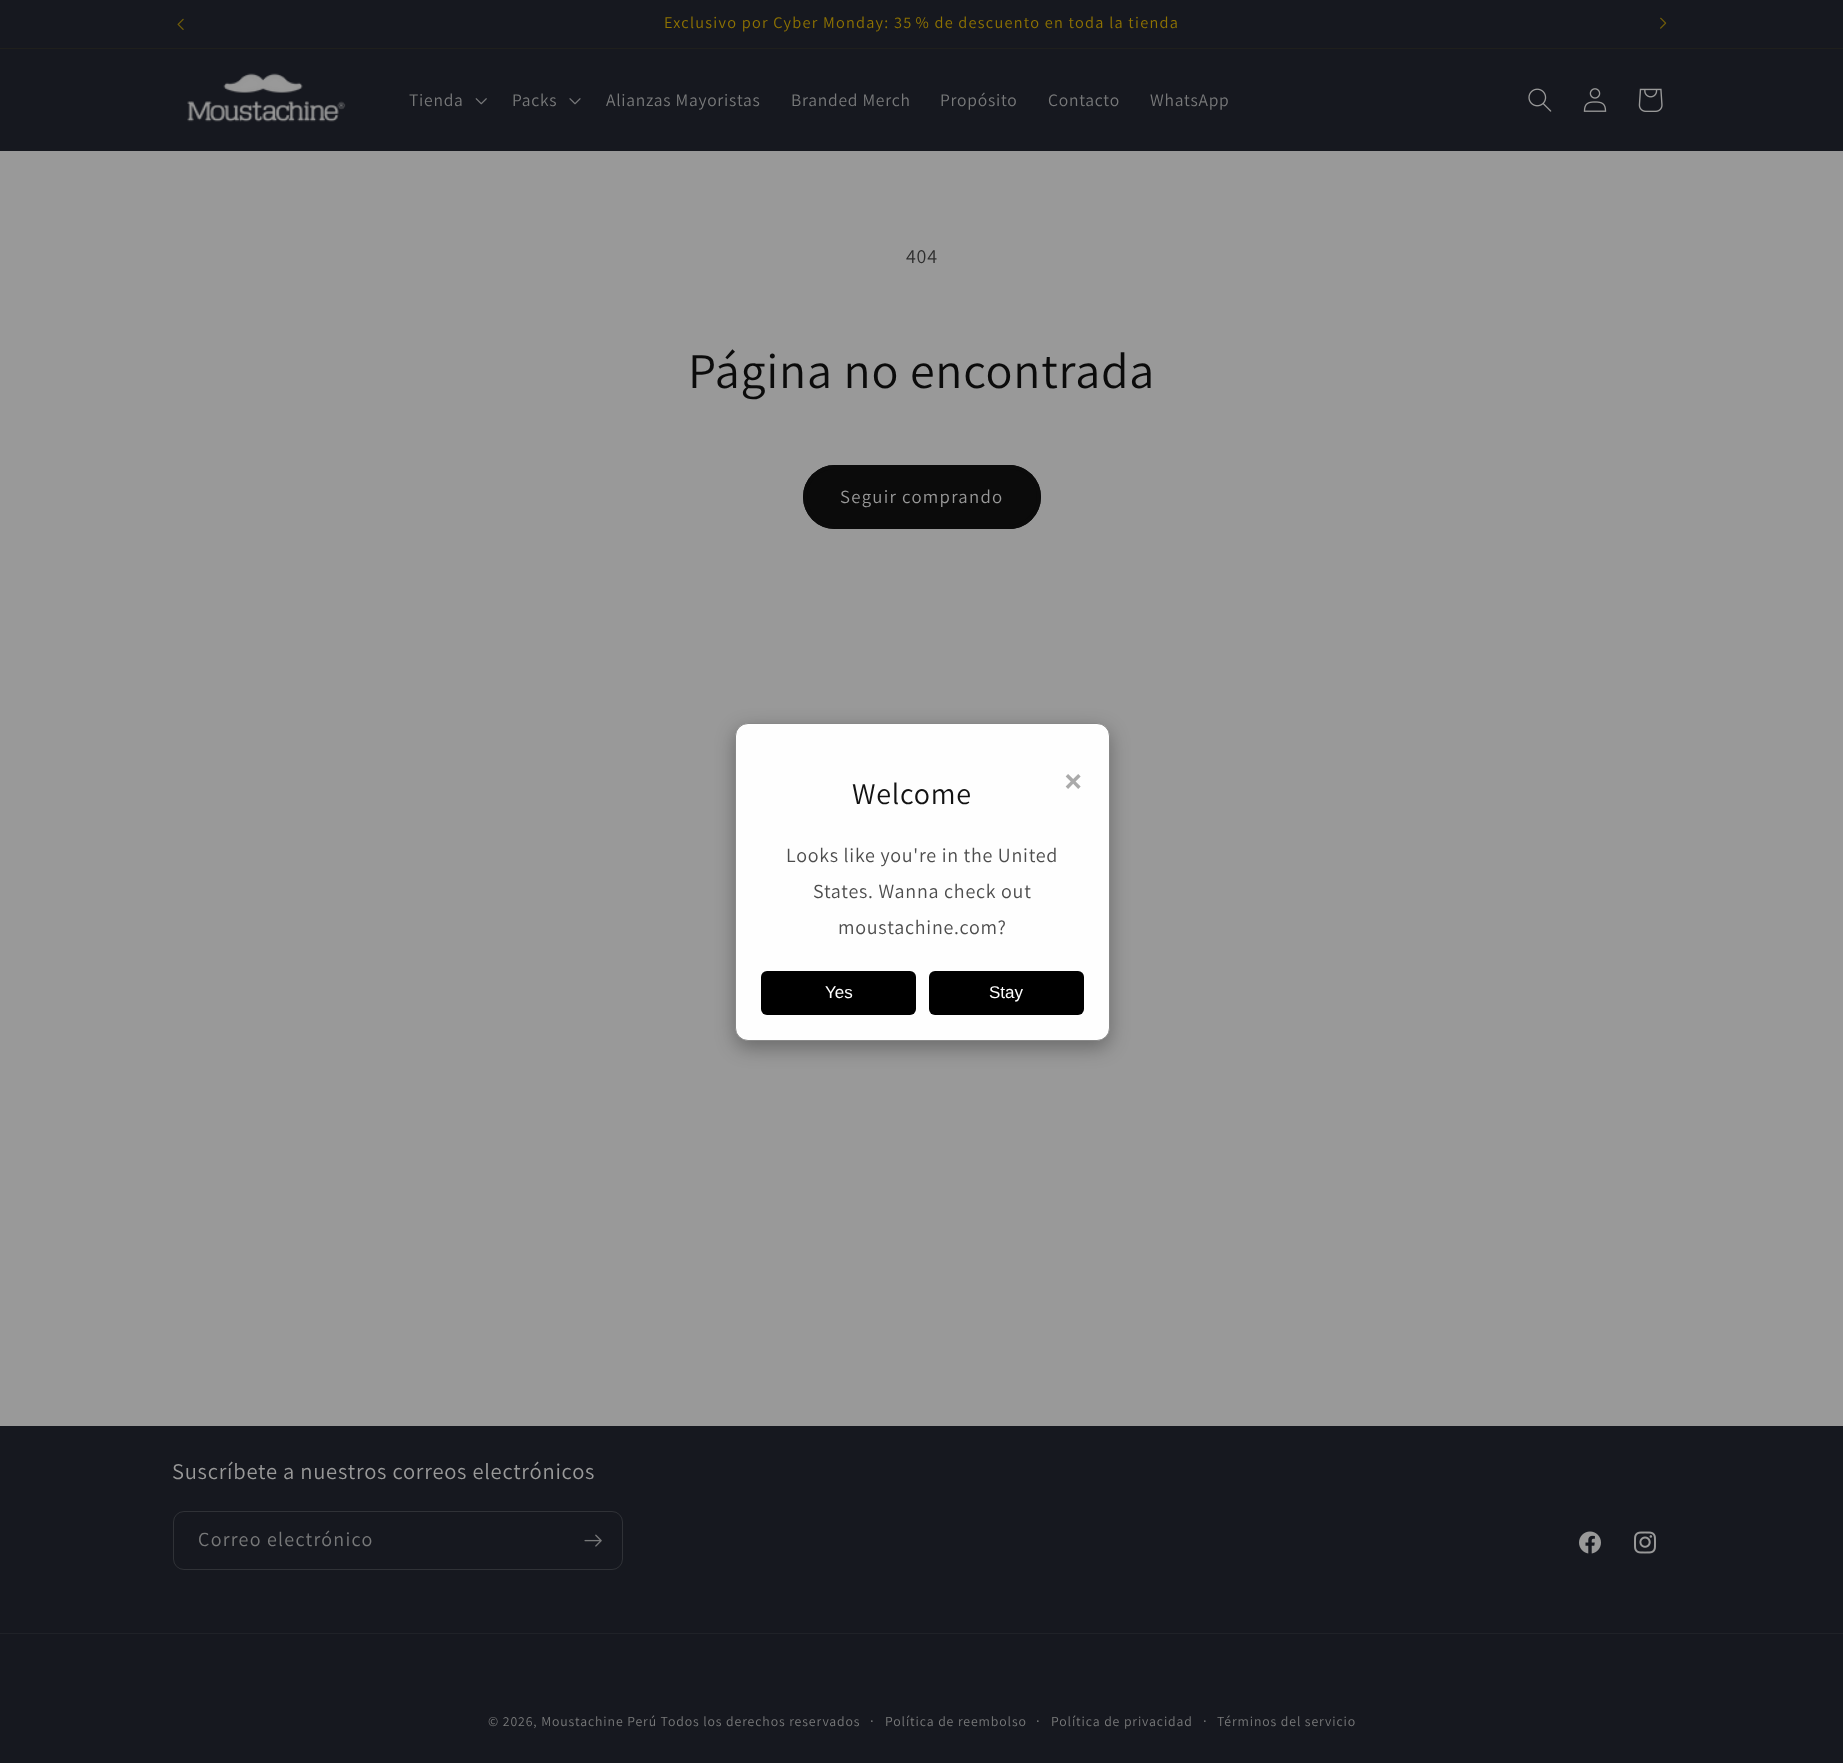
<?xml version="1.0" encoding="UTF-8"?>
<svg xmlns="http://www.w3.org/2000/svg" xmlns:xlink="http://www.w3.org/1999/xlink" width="1843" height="1763">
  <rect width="100%" height="100%" fill="#999999" />
  <rect width="1843" height="48" fill="#16181f" />
  <rect y="48" width="1843" height="1" fill="#1f1f1c" />
  <image x="177" y="18" width="7" height="12" xlink:href="image1.png" />
  <image x="1660" y="17" width="7" height="12" xlink:href="image2.png" />
  <rect y="49" width="1843" height="102" fill="#16181f" />
  <image x="187" y="73" width="159" height="49" xlink:href="image3.png" />
  <image x="475" y="98" width="12" height="7" xlink:href="image4.png" />
  <image x="569" y="98" width="12" height="7" xlink:href="image5.png" />
  <image x="1528" y="88" width="24" height="24" xlink:href="image6.png" />
  <image x="1583" y="88" width="24" height="24" xlink:href="image7.png" />
  <image x="1638" y="88" width="25" height="24" xlink:href="image8.png" />
  <rect x="803" y="465" width="238" height="64" rx="32" fill="#0b0b0b" />
  <rect x="805" y="467" width="234" height="60" rx="30" fill="none" stroke="#0b0b0b" stroke-width="4" />
  <rect x="735" y="729" width="375" height="319" rx="13" fill="#000000" fill-opacity="0.3" filter="blur(9.5px)" />
  <rect x="735.5" y="723.5" width="374" height="317" rx="12.5" fill="#fefefe" stroke="#888888" />
  <rect x="761" y="971" width="155" height="44" rx="6" fill="#000000" />
  <rect x="929" y="971" width="155" height="44" rx="6" fill="#000000" />
  <rect y="1426" width="1843" height="337" fill="#16181f" />
  <rect x="173.5" y="1511.5" width="449" height="58" rx="10.5" fill="none" stroke="#303237" />
  <image x="584" y="1534" width="18" height="13" xlink:href="image9.png" />
  <image x="1579" y="1531" width="22" height="23" xlink:href="image10.png" />
  <image x="1634" y="1531" width="22" height="23" xlink:href="image11.png" />
  <rect y="1633" width="1843" height="1" fill="#202228" />
  <text x="664" y="28" style="font-family: Assistant; font-size: 16.25px; letter-spacing: 1.25px; fill: #8f7302">Exclusivo por Cyber Monday: 35 % de descuento en toda la tienda</text>
  <text x="409" y="106" style="font-family: Assistant; font-size: 17.5px; letter-spacing: 0.75px; fill: #78797a">Tienda</text>
  <text x="512" y="106" style="font-family: Assistant; font-size: 17.5px; letter-spacing: 0.75px; fill: #78797a">Packs</text>
  <text x="606" y="106" style="font-family: Assistant; font-size: 17.5px; letter-spacing: 0.75px; fill: #78797a">Alianzas Mayoristas</text>
  <text x="791" y="106" style="font-family: Assistant; font-size: 17.5px; letter-spacing: 0.75px; fill: #78797a">Branded Merch</text>
  <text x="940" y="106" style="font-family: Assistant; font-size: 17.5px; letter-spacing: 0.75px; fill: #78797a">Propósito</text>
  <text x="1048" y="106" style="font-family: Assistant; font-size: 17.5px; letter-spacing: 0.75px; fill: #78797a">Contacto</text>
  <text x="1150" y="106" style="font-family: Assistant; font-size: 17.5px; letter-spacing: 0.75px; fill: #78797a">WhatsApp</text>
  <text x="906" y="263" style="font-family: Assistant; font-size: 20px; letter-spacing: 0.75px; fill: #2e2e2e">404</text>
  <text x="688" y="388" style="font-family: Assistant; font-size: 50px; letter-spacing: 0.75px; fill: #0b0b0b">Página no encontrada</text>
  <text x="840" y="503" style="font-family: Assistant; font-size: 18.75px; letter-spacing: 1.25px; fill: #999999">Seguir comprando</text>
  <text x="852" y="804" style="font-family: Assistant; font-size: 30px; letter-spacing: 0.75px; fill: #121212">Welcome</text>
  <text x="1064" y="793" style="font-family: Assistant; font-size: 35px; font-weight: bold; letter-spacing: 0.75px; fill: #aaaaaa">×</text>
  <text x="786" y="862" style="font-family: Assistant; font-size: 20px; letter-spacing: 0.75px; fill: #4d4d4d">Looks like you're in the United</text>
  <text x="813" y="898" style="font-family: Assistant; font-size: 20px; letter-spacing: 0.75px; fill: #4d4d4d">States. Wanna check out</text>
  <text x="838" y="934" style="font-family: Assistant; font-size: 20px; letter-spacing: 0.75px; fill: #4d4d4d">moustachine.com?</text>
  <text x="825" y="998" style="font-family: Liberation Sans; font-size: 17px; fill: #ffffff">Yes</text>
  <text x="989" y="998" style="font-family: Liberation Sans; font-size: 17px; fill: #ffffff">Stay</text>
  <text x="172" y="1479" style="font-family: Assistant; font-size: 22.5px; letter-spacing: 0.75px; fill: #999999">Suscríbete a nuestros correos electrónicos</text>
  <text x="198" y="1546" style="font-family: Assistant; font-size: 20px; letter-spacing: 1.25px; fill: #78797a">Correo electrónico</text>
  <text x="488" y="1726" style="font-family: Assistant; font-size: 13.75px; letter-spacing: 0.88px; fill: #78797a">© 2026, Moustachine Perú Todos los derechos reservados</text>
  <text x="870" y="1726" style="font-family: Assistant; font-size: 15px; letter-spacing: 0.88px; fill: #78797a">·</text>
  <text x="885" y="1726" style="font-family: Assistant; font-size: 13.75px; letter-spacing: 0.88px; fill: #78797a">Política de reembolso</text>
  <text x="1036" y="1726" style="font-family: Assistant; font-size: 15px; letter-spacing: 0.88px; fill: #78797a">·</text>
  <text x="1051" y="1726" style="font-family: Assistant; font-size: 13.75px; letter-spacing: 0.88px; fill: #78797a">Política de privacidad</text>
  <text x="1203" y="1726" style="font-family: Assistant; font-size: 15px; letter-spacing: 0.88px; fill: #78797a">·</text>
  <text x="1217" y="1726" style="font-family: Assistant; font-size: 13.75px; letter-spacing: 0.88px; fill: #78797a">Términos del servicio</text>
</svg>
